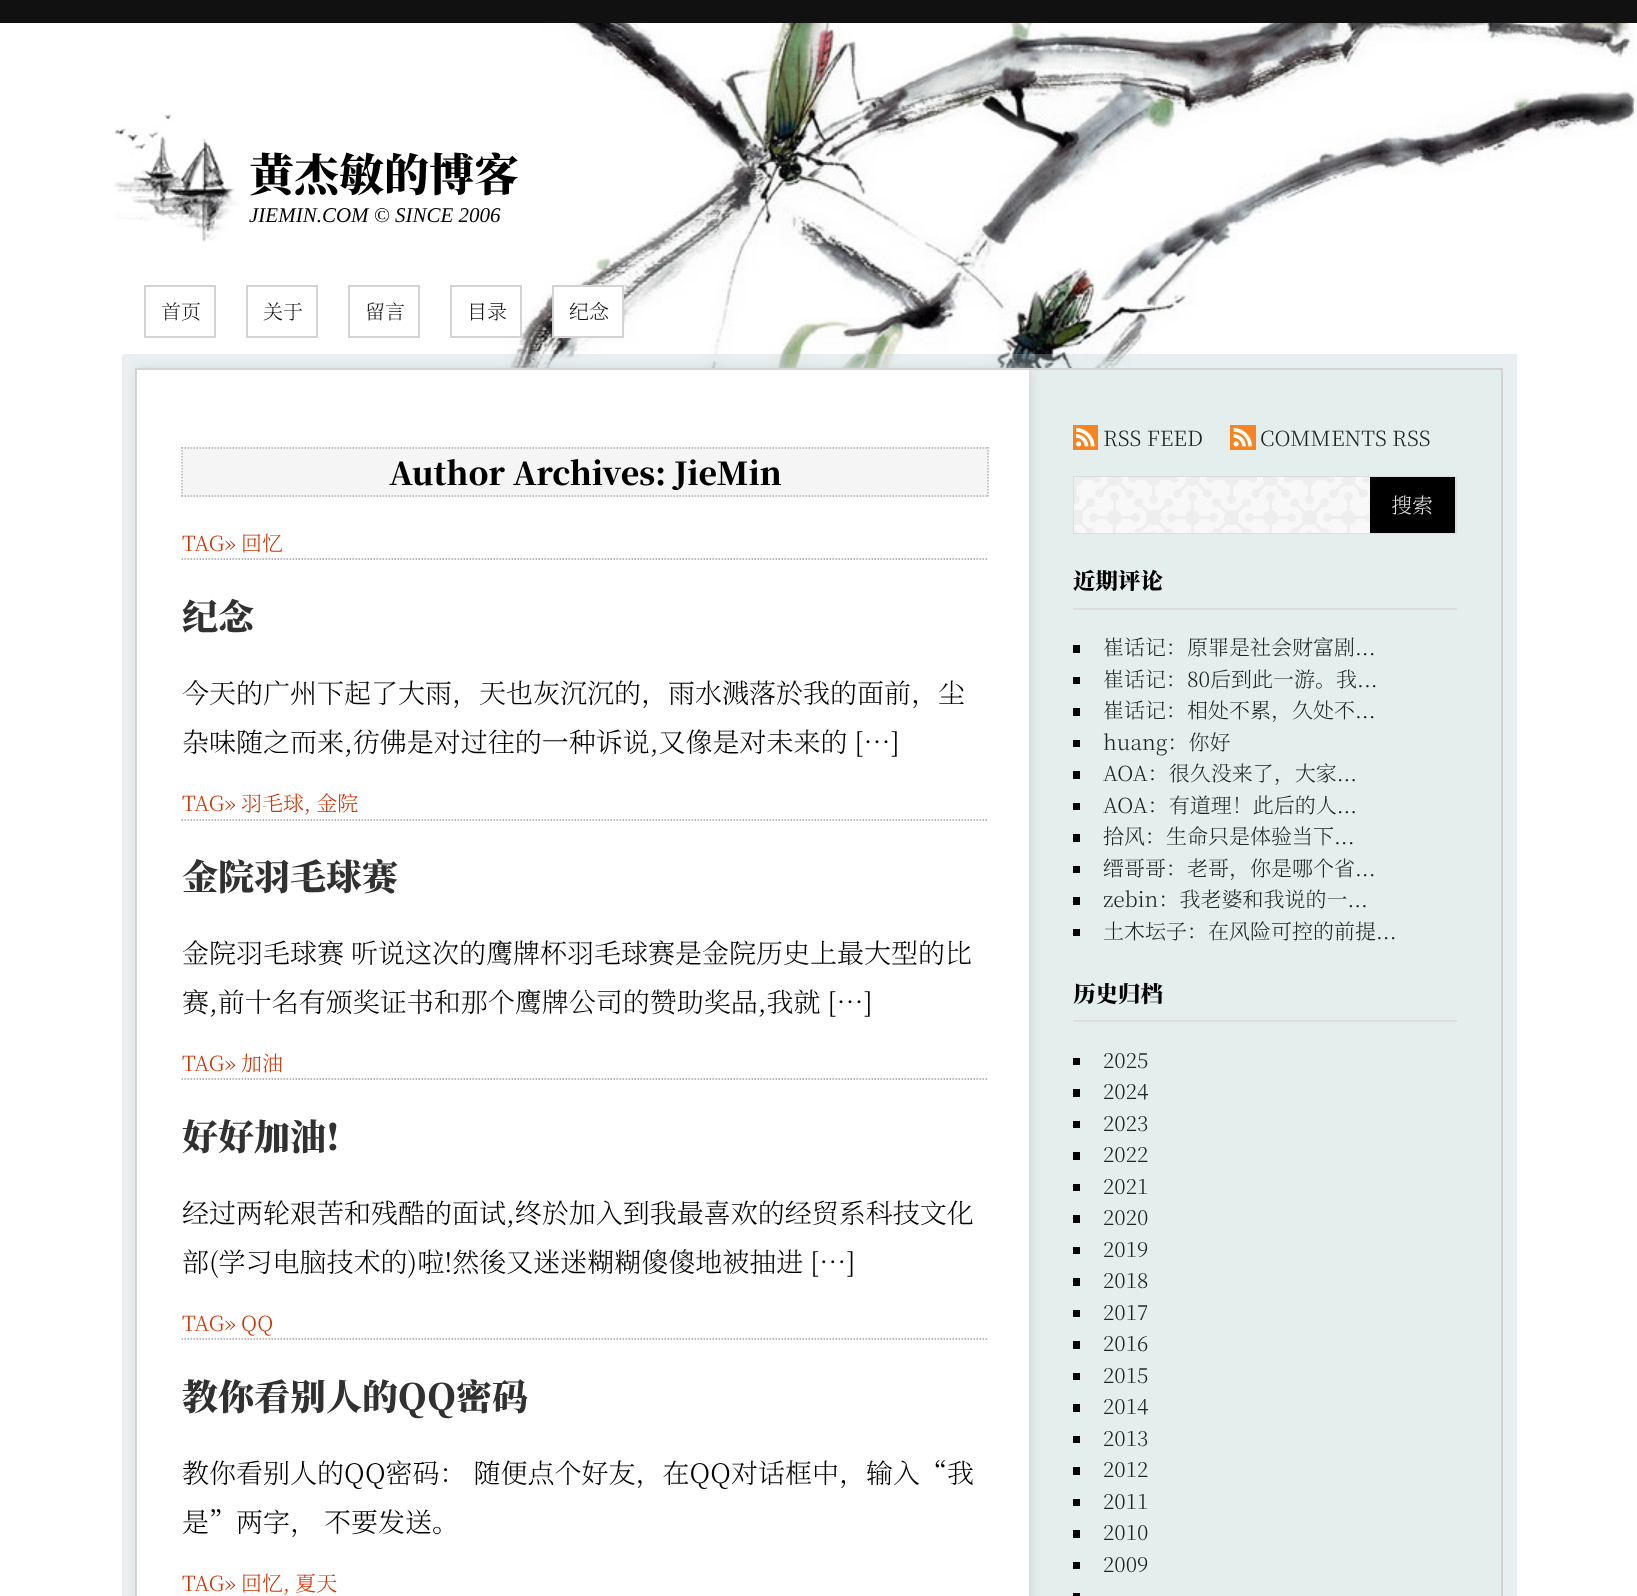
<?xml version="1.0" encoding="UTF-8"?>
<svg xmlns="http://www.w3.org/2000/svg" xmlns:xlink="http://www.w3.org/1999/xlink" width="1637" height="1596">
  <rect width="100%" height="100%" fill="#ffffff" />
  <image x="451" y="23" width="1186" height="685" xlink:href="image1.png" />
  <rect width="1637" height="23" fill="#111111" />
  <image x="114" y="114" width="126" height="128" xlink:href="image2.png" />
  <rect x="145" y="286" width="70" height="51" fill="none" stroke="#d3d3d3" stroke-width="2" />
  <rect x="247" y="286" width="70" height="51" fill="none" stroke="#d3d3d3" stroke-width="2" />
  <rect x="349" y="286" width="70" height="51" fill="none" stroke="#d3d3d3" stroke-width="2" />
  <rect x="518" y="318" width="2" height="17" fill="#ffffff" />
  <rect x="451" y="286" width="70" height="51" fill="none" stroke="#d3d3d3" stroke-width="2" />
  <rect x="553" y="286" width="70" height="51" fill="#ffffff" stroke="#d3d3d3" stroke-width="2" />
  <rect x="1029" y="370" width="472" height="1226" fill="#e4eeec" />
  <rect x="138" y="369" width="893" height="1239" fill="#d1d7d7" filter="blur(4px)" />
  <rect x="137" y="370" width="892" height="1226" fill="#ffffff" />
  <rect x="129" y="361" width="1381" height="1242" fill="none" stroke="#bbc9cf" stroke-opacity="0.32" stroke-width="14" />
  <rect x="136" y="369" width="1366" height="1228" fill="none" stroke="#d3d3d3" stroke-width="2" />
  <rect x="182" y="447" width="807" height="50" fill="#f5f5f5" />
  <path d="M 181.5 448 h 807" fill="none" stroke="#b3b3b3" stroke-width="1.5" stroke-dasharray="1.5 1.5" />
  <path d="M 988 447 v 49.5" fill="none" stroke="#b3b3b3" stroke-width="1.5" stroke-dasharray="1.5 1.5" />
  <path d="M 181.5 496 h 807" fill="none" stroke="#b3b3b3" stroke-width="1.5" stroke-dasharray="1.5 1.5" />
  <path d="M 182 447 v 49.5" fill="none" stroke="#b3b3b3" stroke-width="1.5" stroke-dasharray="1.5 1.5" />
  <path d="M 181.5 559 h 807" fill="none" stroke="#a3a3a3" stroke-width="1.5" stroke-dasharray="1.5 1.5" />
  <path d="M 181.5 820 h 807" fill="none" stroke="#a3a3a3" stroke-width="1.5" stroke-dasharray="1.5 1.5" />
  <path d="M 181.5 1079 h 807" fill="none" stroke="#a3a3a3" stroke-width="1.5" stroke-dasharray="1.5 1.5" />
  <path d="M 181.5 1339 h 807" fill="none" stroke="#a3a3a3" stroke-width="1.5" stroke-dasharray="1.5 1.5" />
  <image x="1073" y="425" width="25" height="25" xlink:href="image3.png" />
  <image x="1230" y="425" width="26" height="25" xlink:href="image4.png" />
  <rect x="1074" y="477" width="382" height="56" fill="none" stroke="#dddddd" stroke-width="2" />
  <rect x="1074" y="477" width="296" height="56" fill="#f8f8f8" />
  <image x="1074" y="477" width="296" height="56" xlink:href="image5.png" />
  <rect x="1370" y="477" width="85" height="56" fill="#000000" />
  <rect x="1073" y="608" width="384" height="2" fill="#dddddd" />
  <rect x="1073" y="645" width="7" height="8" fill="#000000" />
  <rect x="1073" y="677" width="7" height="7" fill="#000000" />
  <rect x="1073" y="708" width="7" height="8" fill="#000000" />
  <rect x="1073" y="740" width="7" height="7" fill="#000000" />
  <rect x="1073" y="771" width="7" height="8" fill="#000000" />
  <rect x="1073" y="803" width="7" height="7" fill="#000000" />
  <rect x="1073" y="834" width="7" height="8" fill="#000000" />
  <rect x="1073" y="866" width="7" height="7" fill="#000000" />
  <rect x="1073" y="897" width="7" height="8" fill="#000000" />
  <rect x="1073" y="929" width="7" height="7" fill="#000000" />
  <rect x="1073" y="1020" width="384" height="2" fill="#dddddd" />
  <rect x="1073" y="1058" width="7" height="7" fill="#000000" />
  <rect x="1073" y="1089" width="7" height="8" fill="#000000" />
  <rect x="1073" y="1121" width="7" height="7" fill="#000000" />
  <rect x="1073" y="1152" width="7" height="8" fill="#000000" />
  <rect x="1073" y="1184" width="7" height="7" fill="#000000" />
  <rect x="1073" y="1215" width="7" height="8" fill="#000000" />
  <rect x="1073" y="1247" width="7" height="7" fill="#000000" />
  <rect x="1073" y="1278" width="7" height="8" fill="#000000" />
  <rect x="1073" y="1310" width="7" height="7" fill="#000000" />
  <rect x="1073" y="1341" width="7" height="8" fill="#000000" />
  <rect x="1073" y="1373" width="7" height="7" fill="#000000" />
  <rect x="1073" y="1404" width="7" height="8" fill="#000000" />
  <rect x="1073" y="1436" width="7" height="7" fill="#000000" />
  <rect x="1073" y="1467" width="7" height="8" fill="#000000" />
  <rect x="1073" y="1499" width="7" height="7" fill="#000000" />
  <rect x="1073" y="1530" width="7" height="8" fill="#000000" />
  <rect x="1073" y="1562" width="7" height="7" fill="#000000" />
  <rect x="1073" y="1593" width="7" height="3" fill="#000000" />
  <text x="249" y="191" style="font-family: Noto Serif SC; font-size: 45px; font-weight: 900; fill: #000000">黄杰敏的博客</text>
  <text x="249" y="222" style="font-family: Liberation Serif; font-size: 21px; font-style: italic; fill: #000000">JIEMIN.COM © SINCE 2006</text>
  <text x="161" y="319" style="font-family: Noto Serif SC; font-size: 20px; font-weight: 300; fill: #111111">首页</text>
  <text x="263" y="319" style="font-family: Noto Serif SC; font-size: 20px; font-weight: 300; fill: #111111">关于</text>
  <text x="365" y="319" style="font-family: Noto Serif SC; font-size: 20px; font-weight: 300; fill: #111111">留言</text>
  <text x="467" y="319" style="font-family: Noto Serif SC; font-size: 20px; font-weight: 300; fill: #111111">目录</text>
  <text x="569" y="319" style="font-family: Noto Serif SC; font-size: 20px; font-weight: 300; fill: #111111">纪念</text>
  <text x="389" y="485" style="font-family: Noto Serif SC; font-size: 31.5px; font-weight: 900; fill: #000000">Author Archives: JieMin</text>
  <text x="182" y="551" style="font-family: Noto Serif SC; font-size: 21px; font-weight: 300; fill: #cc3300">TAG» 回忆</text>
  <text x="182" y="630" style="font-family: Noto Serif SC; font-size: 36px; font-weight: 900; fill: #313131">纪念</text>
  <text x="182" y="703" style="font-family: Noto Serif SC; font-size: 27px; font-weight: 300; fill: #000000">今天的广州下起了大雨，天也灰沉沉的，雨水溅落於我的面前，尘</text>
  <text x="182" y="752" style="font-family: Noto Serif SC; font-size: 27px; font-weight: 300; fill: #000000">杂味随之而来,彷佛是对过往的一种诉说,又像是对未来的 […]</text>
  <text x="182" y="811" style="font-family: Noto Serif SC; font-size: 21px; font-weight: 300; fill: #cc3300">TAG» 羽毛球, 金院</text>
  <text x="182" y="890" style="font-family: Noto Serif SC; font-size: 36px; font-weight: 900; fill: #313131">金院羽毛球赛</text>
  <text x="182" y="963" style="font-family: Noto Serif SC; font-size: 27px; font-weight: 300; fill: #000000">金院羽毛球赛 听说这次的鹰牌杯羽毛球赛是金院历史上最大型的比</text>
  <text x="182" y="1012" style="font-family: Noto Serif SC; font-size: 27px; font-weight: 300; fill: #000000">赛,前十名有颁奖证书和那个鹰牌公司的赞助奖品,我就 […]</text>
  <text x="182" y="1071" style="font-family: Noto Serif SC; font-size: 21px; font-weight: 300; fill: #cc3300">TAG» 加油</text>
  <text x="182" y="1150" style="font-family: Noto Serif SC; font-size: 36px; font-weight: 900; fill: #313131">好好加油!</text>
  <text x="182" y="1223" style="font-family: Noto Serif SC; font-size: 27px; font-weight: 300; fill: #000000">经过两轮艰苦和残酷的面试,终於加入到我最喜欢的经贸系科技文化</text>
  <text x="182" y="1272" style="font-family: Noto Serif SC; font-size: 27px; font-weight: 300; fill: #000000">部(学习电脑技术的)啦!然後又迷迷糊糊傻傻地被抽进 […]</text>
  <text x="182" y="1331" style="font-family: Noto Serif SC; font-size: 21px; font-weight: 300; fill: #cc3300">TAG» QQ</text>
  <text x="182" y="1410" style="font-family: Noto Serif SC; font-size: 36px; font-weight: 900; fill: #313131">教你看别人的QQ密码</text>
  <text x="182" y="1483" style="font-family: Noto Serif SC; font-size: 27px; font-weight: 300; fill: #000000">教你看别人的QQ密码： 随便点个好友，在QQ对话框中，输入“我</text>
  <text x="182" y="1532" style="font-family: Noto Serif SC; font-size: 27px; font-weight: 300; fill: #000000">是”两字， 不要发送。</text>
  <text x="182" y="1591" style="font-family: Noto Serif SC; font-size: 21px; font-weight: 300; fill: #cc3300">TAG» 回忆, 夏天</text>
  <text x="1103" y="446" style="font-family: Noto Serif SC; font-size: 21px; font-weight: 300; fill: #1e2322">RSS FEED</text>
  <text x="1260" y="446" style="font-family: Noto Serif SC; font-size: 21px; font-weight: 300; fill: #1e2322">COMMENTS RSS</text>
  <text x="1391" y="513" style="font-family: Noto Serif SC; font-size: 21px; font-weight: 300; fill: #dddddd">搜索</text>
  <text x="1073" y="589" style="font-family: Noto Serif SC; font-size: 22.5px; font-weight: 900; fill: #000000">近期评论</text>
  <text x="1103" y="655" style="font-family: Noto Serif SC; font-size: 21px; font-weight: 300; fill: #1e2322">崔话记：原罪是社会财富剧...</text>
  <text x="1103" y="687" style="font-family: Noto Serif SC; font-size: 21px; font-weight: 300; fill: #1e2322">崔话记：80后到此一游。我...</text>
  <text x="1103" y="718" style="font-family: Noto Serif SC; font-size: 21px; font-weight: 300; fill: #1e2322">崔话记：相处不累，久处不...</text>
  <text x="1103" y="750" style="font-family: Noto Serif SC; font-size: 21px; font-weight: 300; fill: #1e2322">huang：你好</text>
  <text x="1103" y="781" style="font-family: Noto Serif SC; font-size: 21px; font-weight: 300; fill: #1e2322">AOA：很久没来了，大家...</text>
  <text x="1103" y="813" style="font-family: Noto Serif SC; font-size: 21px; font-weight: 300; fill: #1e2322">AOA：有道理！此后的人...</text>
  <text x="1103" y="844" style="font-family: Noto Serif SC; font-size: 21px; font-weight: 300; fill: #1e2322">拾风：生命只是体验当下...</text>
  <text x="1103" y="876" style="font-family: Noto Serif SC; font-size: 21px; font-weight: 300; fill: #1e2322">缙哥哥：老哥，你是哪个省...</text>
  <text x="1103" y="907" style="font-family: Noto Serif SC; font-size: 21px; font-weight: 300; fill: #1e2322">zebin：我老婆和我说的一...</text>
  <text x="1103" y="939" style="font-family: Noto Serif SC; font-size: 21px; font-weight: 300; fill: #1e2322">土木坛子：在风险可控的前提...</text>
  <text x="1073" y="1002" style="font-family: Noto Serif SC; font-size: 22.5px; font-weight: 900; fill: #000000">历史归档</text>
  <text x="1103" y="1068" style="font-family: Noto Serif SC; font-size: 21px; font-weight: 300; fill: #1e2322">2025</text>
  <text x="1103" y="1099" style="font-family: Noto Serif SC; font-size: 21px; font-weight: 300; fill: #1e2322">2024</text>
  <text x="1103" y="1131" style="font-family: Noto Serif SC; font-size: 21px; font-weight: 300; fill: #1e2322">2023</text>
  <text x="1103" y="1162" style="font-family: Noto Serif SC; font-size: 21px; font-weight: 300; fill: #1e2322">2022</text>
  <text x="1103" y="1194" style="font-family: Noto Serif SC; font-size: 21px; font-weight: 300; fill: #1e2322">2021</text>
  <text x="1103" y="1225" style="font-family: Noto Serif SC; font-size: 21px; font-weight: 300; fill: #1e2322">2020</text>
  <text x="1103" y="1257" style="font-family: Noto Serif SC; font-size: 21px; font-weight: 300; fill: #1e2322">2019</text>
  <text x="1103" y="1288" style="font-family: Noto Serif SC; font-size: 21px; font-weight: 300; fill: #1e2322">2018</text>
  <text x="1103" y="1320" style="font-family: Noto Serif SC; font-size: 21px; font-weight: 300; fill: #1e2322">2017</text>
  <text x="1103" y="1351" style="font-family: Noto Serif SC; font-size: 21px; font-weight: 300; fill: #1e2322">2016</text>
  <text x="1103" y="1383" style="font-family: Noto Serif SC; font-size: 21px; font-weight: 300; fill: #1e2322">2015</text>
  <text x="1103" y="1414" style="font-family: Noto Serif SC; font-size: 21px; font-weight: 300; fill: #1e2322">2014</text>
  <text x="1103" y="1446" style="font-family: Noto Serif SC; font-size: 21px; font-weight: 300; fill: #1e2322">2013</text>
  <text x="1103" y="1477" style="font-family: Noto Serif SC; font-size: 21px; font-weight: 300; fill: #1e2322">2012</text>
  <text x="1103" y="1509" style="font-family: Noto Serif SC; font-size: 21px; font-weight: 300; fill: #1e2322">2011</text>
  <text x="1103" y="1540" style="font-family: Noto Serif SC; font-size: 21px; font-weight: 300; fill: #1e2322">2010</text>
  <text x="1103" y="1572" style="font-family: Noto Serif SC; font-size: 21px; font-weight: 300; fill: #1e2322">2009</text>
</svg>
